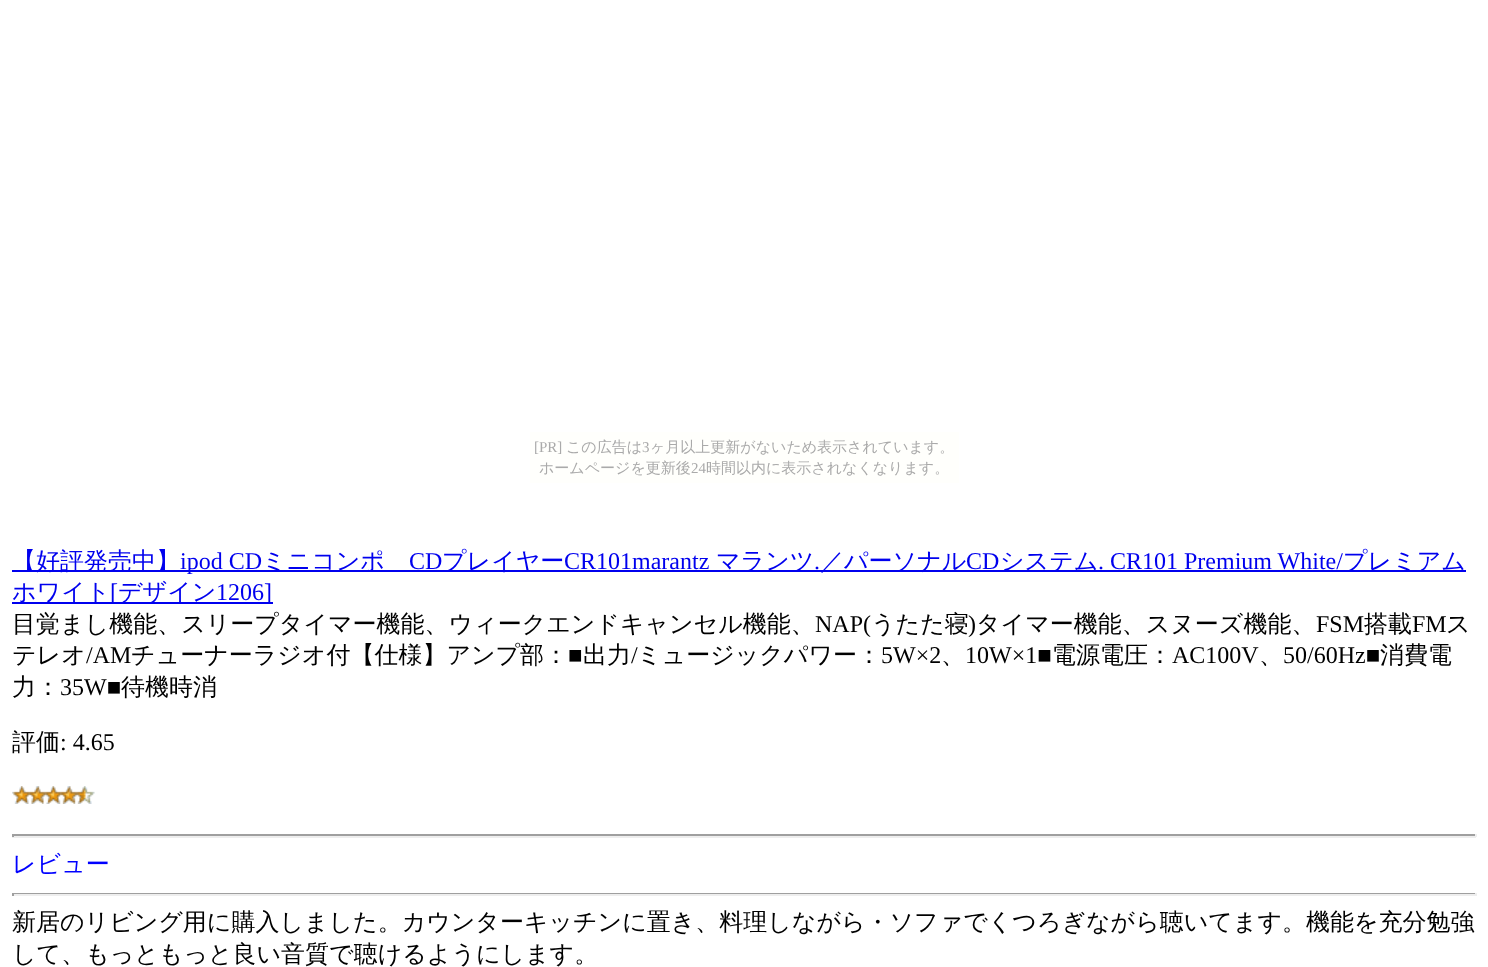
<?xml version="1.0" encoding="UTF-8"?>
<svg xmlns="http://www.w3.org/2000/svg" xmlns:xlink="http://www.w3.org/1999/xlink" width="1488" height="967">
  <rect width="100%" height="100%" fill="#ffffff" />
  <rect x="530" y="432" width="429" height="51" fill="#fffffc" />
  <rect x="12" y="570" width="1454" height="2" fill="#0000ee" />
  <rect x="12" y="602" width="261" height="2" fill="#0000ee" />
  <image x="12" y="786" width="83" height="18" xlink:href="image1.png" />
  <rect x="12" y="834" width="1464" height="2" fill="#9f9f9f" />
  <rect x="1475" y="834" width="2" height="3" fill="#eeeeee" />
  <rect x="12" y="836" width="1464" height="2" fill="#eeeeee" />
  <rect x="12" y="834" width="2" height="3" fill="#9f9f9f" />
  <rect x="12" y="893" width="1464" height="1" fill="#9f9f9f" />
  <rect x="1475" y="893" width="2" height="3" fill="#eeeeee" />
  <rect x="12" y="894" width="1464" height="2" fill="#eeeeee" />
  <rect x="12" y="893" width="2" height="3" fill="#9f9f9f" />
  <text x="534" y="452" style="font-family: Liberation Serif; font-size: 15px; fill: #aaaaaa">[PR]</text>
  <text x="566" y="452" style="font-family: WenQuanYi Zen Hei; font-size: 15px; font-weight: 500; fill: #aaaaaa">この広告は</text>
  <text x="642" y="452" style="font-family: Liberation Serif; font-size: 15px; fill: #aaaaaa">3</text>
  <text x="650" y="452" style="font-family: WenQuanYi Zen Hei; font-size: 15px; font-weight: 500; fill: #aaaaaa">ヶ月以上更新がないため表示されています。</text>
  <text x="539" y="473" style="font-family: WenQuanYi Zen Hei; font-size: 15px; font-weight: 500; fill: #aaaaaa">ホームページを更新後</text>
  <text x="691" y="473" style="font-family: Liberation Serif; font-size: 15px; fill: #aaaaaa">24</text>
  <text x="706" y="473" style="font-family: WenQuanYi Zen Hei; font-size: 15px; font-weight: 500; fill: #aaaaaa">時間以内に表示されなくなります。</text>
  <text x="12" y="569" style="font-family: WenQuanYi Zen Hei; font-size: 24px; font-weight: 500; fill: #0000ee">【好評発売中】</text>
  <text x="180" y="569" style="font-family: Liberation Serif; font-size: 24px; fill: #0000ee">ipod CD</text>
  <text x="262" y="569" style="font-family: WenQuanYi Zen Hei; font-size: 24px; font-weight: 500; fill: #0000ee">ミニコンポ</text>
  <text x="409" y="569" style="font-family: Liberation Serif; font-size: 24px; fill: #0000ee">CD</text>
  <text x="442" y="569" style="font-family: WenQuanYi Zen Hei; font-size: 24px; font-weight: 500; fill: #0000ee">プレイヤー</text>
  <text x="564" y="569" style="font-family: Liberation Serif; font-size: 24px; fill: #0000ee">CR101marantz</text>
  <text x="716" y="569" style="font-family: WenQuanYi Zen Hei; font-size: 24px; font-weight: 500; fill: #0000ee">マランツ</text>
  <text x="814" y="569" style="font-family: Liberation Serif; font-size: 24px; fill: #0000ee">.</text>
  <text x="820" y="569" style="font-family: WenQuanYi Zen Hei; font-size: 24px; font-weight: 500; fill: #0000ee">／パーソナル</text>
  <text x="966" y="569" style="font-family: Liberation Serif; font-size: 24px; fill: #0000ee">CD</text>
  <text x="1000" y="569" style="font-family: WenQuanYi Zen Hei; font-size: 24px; font-weight: 500; fill: #0000ee">システム</text>
  <text x="1098" y="569" style="font-family: Liberation Serif; font-size: 24px; fill: #0000ee">. CR101 Premium White/</text>
  <text x="1343" y="569" style="font-family: WenQuanYi Zen Hei; font-size: 24px; font-weight: 500; fill: #0000ee">プレミアム</text>
  <text x="12" y="600" style="font-family: WenQuanYi Zen Hei; font-size: 24px; font-weight: 500; fill: #0000ee">ホワイト</text>
  <text x="110" y="600" style="font-family: Liberation Serif; font-size: 24px; fill: #0000ee">[</text>
  <text x="118" y="600" style="font-family: WenQuanYi Zen Hei; font-size: 24px; font-weight: 500; fill: #0000ee">デザイン</text>
  <text x="216" y="600" style="font-family: Liberation Serif; font-size: 24px; fill: #0000ee">1206]</text>
  <text x="12" y="632" style="font-family: WenQuanYi Zen Hei; font-size: 24px; font-weight: 500; fill: #000000">目覚まし機能、スリープタイマー機能、ウィークエンドキャンセル機能、</text>
  <text x="815" y="632" style="font-family: Liberation Serif; font-size: 24px; fill: #000000">NAP(</text>
  <text x="871" y="632" style="font-family: WenQuanYi Zen Hei; font-size: 24px; font-weight: 500; fill: #000000">うたた寝</text>
  <text x="968" y="632" style="font-family: Liberation Serif; font-size: 24px; fill: #000000">)</text>
  <text x="976" y="632" style="font-family: WenQuanYi Zen Hei; font-size: 24px; font-weight: 500; fill: #000000">タイマー機能、スヌーズ機能、</text>
  <text x="1316" y="632" style="font-family: Liberation Serif; font-size: 24px; fill: #000000">FSM</text>
  <text x="1364" y="632" style="font-family: WenQuanYi Zen Hei; font-size: 24px; font-weight: 500; fill: #000000">搭載</text>
  <text x="1412" y="632" style="font-family: Liberation Serif; font-size: 24px; fill: #000000">FM</text>
  <text x="1446" y="632" style="font-family: WenQuanYi Zen Hei; font-size: 24px; font-weight: 500; fill: #000000">ス</text>
  <text x="12" y="663" style="font-family: WenQuanYi Zen Hei; font-size: 24px; font-weight: 500; fill: #000000">テレオ</text>
  <text x="86" y="663" style="font-family: Liberation Serif; font-size: 24px; fill: #000000">/AM</text>
  <text x="131" y="663" style="font-family: WenQuanYi Zen Hei; font-size: 24px; font-weight: 500; fill: #000000">チューナーラジオ付【仕様】アンプ部：</text>
  <text x="568" y="663" style="font-family: Liberation Serif; font-size: 24px; fill: #000000">■</text>
  <text x="583" y="663" style="font-family: WenQuanYi Zen Hei; font-size: 24px; font-weight: 500; fill: #000000">出力</text>
  <text x="631" y="663" style="font-family: Liberation Serif; font-size: 24px; fill: #000000">/</text>
  <text x="637" y="663" style="font-family: WenQuanYi Zen Hei; font-size: 24px; font-weight: 500; fill: #000000">ミュージックパワー：</text>
  <text x="881" y="663" style="font-family: Liberation Serif; font-size: 24px; fill: #000000">5W×2</text>
  <text x="965" y="663" style="font-family: Liberation Serif; font-size: 24px; fill: #000000">10W×1■</text>
  <text x="1052" y="663" style="font-family: WenQuanYi Zen Hei; font-size: 24px; font-weight: 500; fill: #000000">電源電圧：</text>
  <text x="1172" y="663" style="font-family: Liberation Serif; font-size: 24px; fill: #000000">AC100V</text>
  <text x="1283" y="663" style="font-family: Liberation Serif; font-size: 24px; fill: #000000">50/60Hz■</text>
  <text x="1380" y="663" style="font-family: WenQuanYi Zen Hei; font-size: 24px; font-weight: 500; fill: #000000">消費電</text>
  <text x="941" y="663" style="font-family: WenQuanYi Zen Hei; font-size: 24px; font-weight: 500; fill: #000000">、</text>
  <text x="1259" y="663" style="font-family: WenQuanYi Zen Hei; font-size: 24px; font-weight: 500; fill: #000000">、</text>
  <text x="12" y="695" style="font-family: WenQuanYi Zen Hei; font-size: 24px; font-weight: 500; fill: #000000">力：</text>
  <text x="60" y="695" style="font-family: Liberation Serif; font-size: 24px; fill: #000000">35W■</text>
  <text x="121" y="695" style="font-family: WenQuanYi Zen Hei; font-size: 24px; font-weight: 500; fill: #000000">待機時消</text>
  <text x="12" y="750" style="font-family: WenQuanYi Zen Hei; font-size: 24px; font-weight: 500; fill: #000000">評価</text>
  <text x="60" y="750" style="font-family: Liberation Serif; font-size: 24px; fill: #000000">: 4.65</text>
  <text x="12" y="872" style="font-family: WenQuanYi Zen Hei; font-size: 24px; font-weight: 500; fill: #0000ff">レビュー</text>
  <text x="12" y="930" style="font-family: WenQuanYi Zen Hei; font-size: 24px; font-weight: 500; fill: #000000">新居のリビング用に購入しました。カウンターキッチンに置き、料理しながら・ソファでくつろぎながら聴いてます。機能を充分勉強</text>
  <text x="12" y="962" style="font-family: WenQuanYi Zen Hei; font-size: 24px; font-weight: 500; fill: #000000">して、もっともっと良い音質で聴けるようにします。</text>
</svg>
